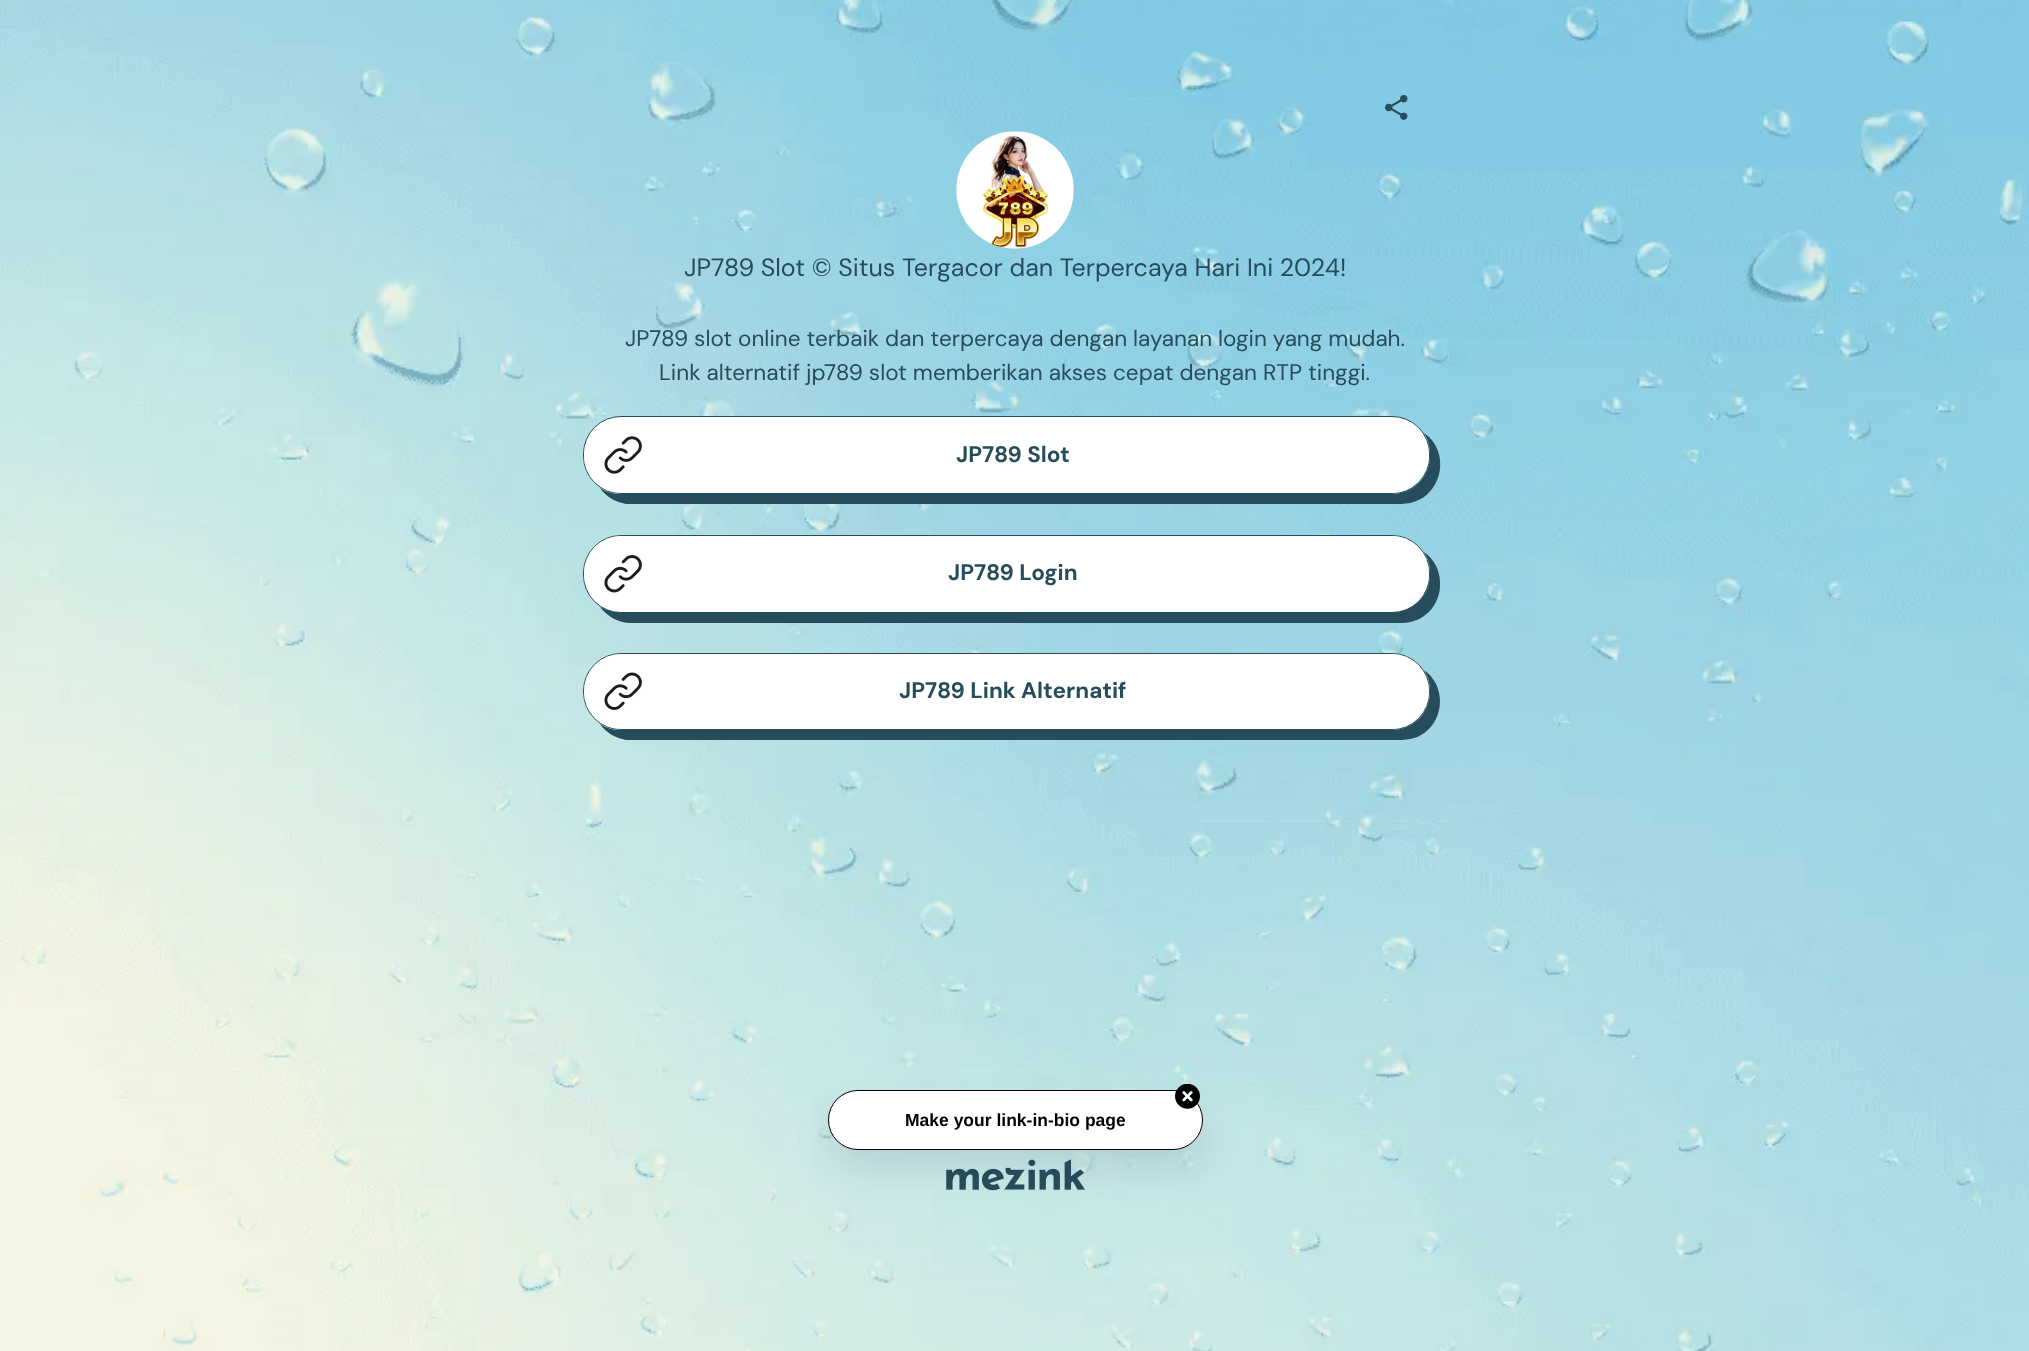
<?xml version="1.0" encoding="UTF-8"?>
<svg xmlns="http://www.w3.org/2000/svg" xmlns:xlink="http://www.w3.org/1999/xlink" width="2029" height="1351">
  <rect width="100%" height="100%" fill="#ffffff" />
  <image x="0" y="0" width="2029" height="1351" xlink:href="image1.png" />
  <image x="1385" y="95" width="23" height="25" xlink:href="image2.png" />
  <image x="956" y="131" width="118" height="118" xlink:href="image3.png" />
  <path d="M 600 488 c 6 9 16 14 26 16 h 776 l 8 -1 c 33 -7 41 -52 14 -70 c 4 6 6 13 6 21 v 2 c 0 21 -17 38 -38 38 h -772 c -7 0 -14 -2 -20 -6 z" fill="#274c5b" />
  <rect x="583.5" y="416.5" width="846" height="77" rx="37.5" fill="#ffffff" stroke="#274c5b" />
  <rect x="584" y="418" width="845" height="75" rx="37.5" fill="#ffffff" />
  <image x="604" y="436" width="38" height="38" xlink:href="image4.png" />
  <path d="M 600 607 c 7 9 18 16 31 16 h 771 c 21 0 38 -17 38 -38 v -2 c 0 -13 -6 -24 -16 -31 c 4 6 6 13 6 20 v 3 c 0 21 -17 37 -38 37 h -772 c -7 0 -14 -2 -20 -5 z" fill="#274c5b" />
  <rect x="583.5" y="535.5" width="846" height="77" rx="37.5" fill="#ffffff" stroke="#274c5b" />
  <rect x="584" y="536" width="845" height="75" rx="37.5" fill="#ffffff" />
  <image x="604" y="555" width="38" height="38" xlink:href="image5.png" />
  <path d="M 600 724 c 6 9 16 14 26 16 h 776 l 8 -1 c 32 -6 41 -50 14 -69 c 4 6 6 13 6 20 v 2 c 0 21 -17 38 -38 38 h -772 c -7 0 -14 -2 -20 -6 z" fill="#274c5b" />
  <rect x="583.5" y="653.5" width="846" height="76" rx="37.5" fill="#ffffff" stroke="#274c5b" />
  <rect x="584" y="654" width="845" height="75" rx="37.5" fill="#ffffff" />
  <image x="604" y="672" width="38" height="38" xlink:href="image6.png" />
  <image x="946" y="1159" width="139" height="32" xlink:href="image8.png" />
  <rect x="828" y="1108" width="375" height="60" rx="30" fill="#191f3d" fill-opacity="0.1" filter="blur(17px)" />
  <rect x="828.5" y="1090.5" width="374" height="59" rx="29.5" fill="#ffffff" stroke="#000000" />
  <image x="1175" y="1084" width="25" height="25" xlink:href="image7.png" />
  <text x="684" y="276" style="font-family: DM Sans; font-size: 25px; fill: #274c5b">JP789 Slot © Situs Tergacor dan Terpercaya Hari Ini 2024!</text>
  <text x="625" y="346" style="font-family: DM Sans; font-size: 22.5px; fill: #274c5b">JP789 slot online terbaik dan terpercaya dengan layanan login yang mudah.</text>
  <text x="659" y="380" style="font-family: DM Sans; font-size: 22.5px; fill: #274c5b">Link alternatif jp789 slot memberikan akses cepat dengan RTP tinggi.</text>
  <text x="956" y="462" style="font-family: DM Sans; font-size: 22.5px; font-weight: bold; fill: #274c5b">JP789 Slot</text>
  <text x="948" y="580" style="font-family: DM Sans; font-size: 22.5px; font-weight: bold; fill: #274c5b">JP789 Login</text>
  <text x="899" y="698" style="font-family: DM Sans; font-size: 22.5px; font-weight: bold; fill: #274c5b">JP789 Link Alternatif</text>
  <text x="905" y="1126" style="font-family: Arimo; font-size: 17.5px; font-weight: bold; fill: #000000">Make your link-in-bio page</text>
</svg>
